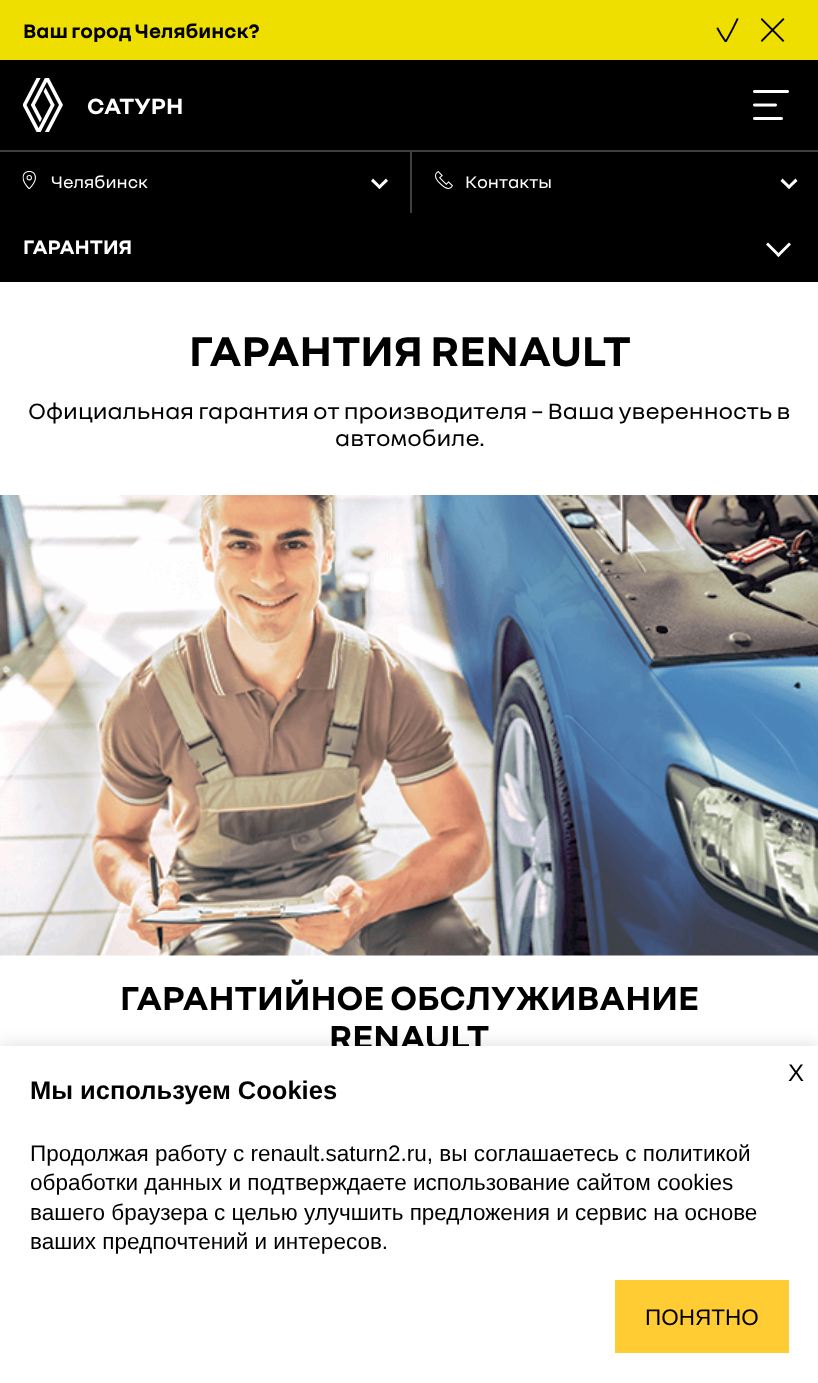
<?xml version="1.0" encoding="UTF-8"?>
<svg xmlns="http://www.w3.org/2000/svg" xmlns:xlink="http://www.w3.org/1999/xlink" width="818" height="1383">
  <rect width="100%" height="100%" fill="#ffffff" />
  <rect y="60" width="818" height="222" fill="#000000" />
  <rect width="818" height="60" fill="#efdf00" />
  <image x="716" y="18" width="23" height="24" xlink:href="image1.png" />
  <image x="761" y="18" width="24" height="24" xlink:href="image2.png" />
  <rect y="150" width="818" height="2" fill="#3e3f40" />
  <image x="23" y="78" width="40" height="54" xlink:href="image3.png" />
  <image x="753" y="90" width="36" height="30" xlink:href="image4.png" />
  <image x="22" y="171" width="14" height="18" xlink:href="image5.png" />
  <path d="M 386 178.5 l 2 2.5 l -8.5 8 l -2 -2 z" fill="#ffffff" />
  <path d="M 373 178.5 l 8.5 8.5 l -2 2 l -8.5 -8 z" fill="#ffffff" />
  <rect x="410" y="152" width="2" height="61" fill="#3e3f40" />
  <image x="435" y="171" width="18" height="18" xlink:href="image6.png" />
  <path d="M 795.5 178.5 l 2 2.5 l -8.5 8 l -2 -2 z" fill="#ffffff" />
  <path d="M 782.5 178.5 l 8.5 8.5 l -2 2 l -8.5 -8 z" fill="#ffffff" />
  <path d="M 789 242.5 l 2 2 l -12.5 12.5 l -2 -2 z" fill="#ffffff" />
  <path d="M 768 242.5 l 12.5 12.5 l -2 2 l -12.5 -12.5 z" fill="#ffffff" />
  <image x="0" y="495" width="818" height="461" xlink:href="image7.png" />
  <rect y="1043" width="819" height="337" fill="#000000" fill-opacity="0.1" filter="blur(7.5px)" />
  <text x="23" y="38" style="font-family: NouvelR; font-size: 21px; font-weight: bold; fill: #000000">Ваш город Челябинск?</text>
  <text x="87" y="114" style="font-family: NouvelR; font-size: 24px; font-weight: bold; fill: #ffffff">САТУРН</text>
  <text x="51" y="188" style="font-family: NouvelR; font-size: 18px; fill: #ffffff">Челябинск</text>
  <text x="465" y="188" style="font-family: NouvelR; font-size: 18px; fill: #ffffff">Контакты</text>
  <text x="23" y="254" style="font-family: NouvelR; font-size: 21px; font-weight: bold; fill: #ffffff">ГАРАНТИЯ</text>
  <text x="189" y="366" style="font-family: NouvelR; font-size: 45px; font-weight: bold; fill: #000000">ГАРАНТИЯ RENAULT</text>
  <text x="28" y="419" style="font-family: NouvelR; font-size: 24px; fill: #000000">Официальная гарантия от производителя – Ваша уверенность в</text>
  <text x="335" y="446" style="font-family: NouvelR; font-size: 24px; fill: #000000">автомобиле.</text>
  <text x="120" y="1010" style="font-family: NouvelR; font-size: 36px; font-weight: bold; fill: #000000">ГАРАНТИЙНОЕ ОБСЛУЖИВАНИЕ</text>
  <text x="329" y="1049" style="font-family: NouvelR; font-size: 36px; font-weight: bold; fill: #000000">RENAULT</text>
  <rect y="1046" width="818" height="337" fill="#ffffff" />
  <text x="788" y="1081" style="font-family: Liberation Sans; font-size: 24px; fill: #000000">X</text>
  <text x="30" y="1099" style="font-family: Liberation Sans; font-size: 25.5px; font-weight: bold; fill: #000000">Мы используем Cookies</text>
  <text x="30" y="1161" style="font-family: Liberation Sans; font-size: 22.5px; fill: #000000">Продолжая работу с renault.saturn2.ru, вы соглашаетесь с политикой</text>
  <text x="30" y="1190" style="font-family: Liberation Sans; font-size: 22.5px; fill: #000000">обработки данных и подтверждаете использование сайтом cookies</text>
  <text x="30" y="1220" style="font-family: Liberation Sans; font-size: 22.5px; fill: #000000">вашего браузера с целью улучшить предложения и сервис на основе</text>
  <text x="30" y="1249" style="font-family: Liberation Sans; font-size: 22.5px; fill: #000000">ваших предпочтений и интересов.</text>
  <rect x="615" y="1280" width="174" height="73" fill="#ffcc33" />
  <text x="645" y="1325" style="font-family: Liberation Sans; font-size: 22.5px; fill: #000000">ПОНЯТНО</text>
</svg>
